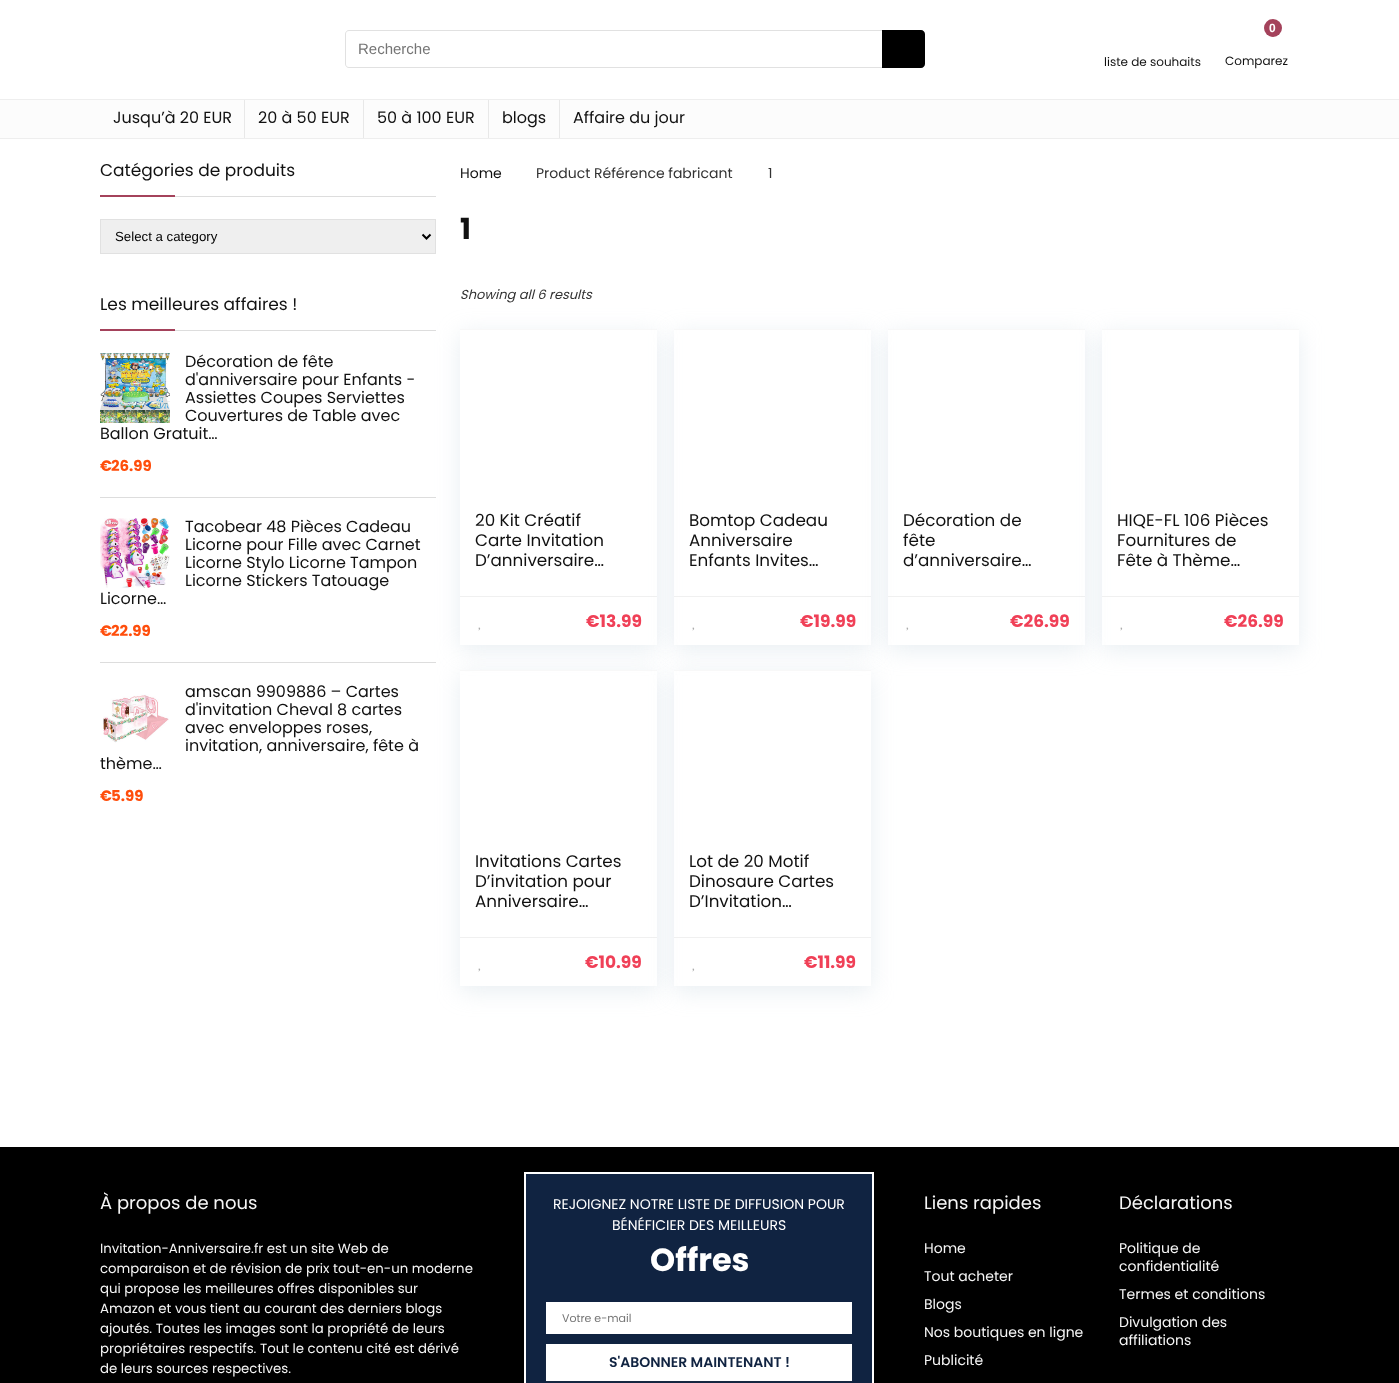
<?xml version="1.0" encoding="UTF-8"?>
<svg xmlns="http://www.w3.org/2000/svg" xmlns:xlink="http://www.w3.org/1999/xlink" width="1399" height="1383">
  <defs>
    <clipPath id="clip1"><path d="M 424 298 h 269 v 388 h -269 z m 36 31 h 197 v 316 h -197 z" clip-rule="evenodd" /></clipPath>
    <clipPath id="clip2"><path d="M 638 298 h 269 v 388 h -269 z m 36 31 h 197 v 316 h -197 z" clip-rule="evenodd" /></clipPath>
    <clipPath id="clip3"><path d="M 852 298 h 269 v 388 h -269 z m 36 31 h 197 v 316 h -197 z" clip-rule="evenodd" /></clipPath>
    <clipPath id="clip4"><path d="M 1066 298 h 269 v 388 h -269 z m 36 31 h 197 v 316 h -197 z" clip-rule="evenodd" /></clipPath>
    <clipPath id="clip5"><path d="M 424 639 h 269 v 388 h -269 z m 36 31 h 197 v 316 h -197 z" clip-rule="evenodd" /></clipPath>
    <clipPath id="clip6"><path d="M 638 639 h 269 v 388 h -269 z m 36 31 h 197 v 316 h -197 z" clip-rule="evenodd" /></clipPath>
    <clipPath id="clip7"><rect x="100" y="293" width="336" height="554" /></clipPath>
  </defs>
  <rect width="100%" height="100%" fill="#ffffff" />
  <path d="M 349 30 h 533 v 38 h -533 c -2 0 -4 -2 -4 -4 v -30 c 0 -2 2 -4 4 -4 z m 0 1 h 533 v 36 h -533 c -2 0 -3 -1 -3 -3 v -30 c 0 -2 1 -3 3 -3 z" fill="#e1e1e1" fill-rule="evenodd" />
  <path d="M 882 30 h 39 c 2 0 4 2 4 4 v 30 c 0 2 -2 4 -4 4 h -39 z" fill="#000000" />
  <circle cx="1273" cy="28" r="9" fill="#a4425b" />
  <rect y="100" width="1399" height="38" fill="#fcfcfc" />
  <rect y="99" width="1399" height="1" fill="#eeeeee" />
  <rect y="138" width="1399" height="1" fill="#eeeeee" />
  <rect x="244" y="100" width="1" height="38" fill="#e8e8e8" />
  <rect x="363" y="100" width="1" height="38" fill="#e8e8e8" />
  <rect x="488" y="100" width="1" height="38" fill="#e8e8e8" />
  <rect x="559" y="100" width="1" height="38" fill="#e8e8e8" />
  <rect x="175" y="196" width="261" height="1" fill="#dddddd" />
  <rect x="100" y="195" width="75" height="2" fill="#a4425b" />
  <rect x="100.5" y="219.5" width="335" height="34" fill="#efefef" stroke="#e1e1e1" />
  <path d="M 422.5 234.5 l 4 4 l 4 -4" fill="none" stroke="#000000" stroke-width="2" />
  <rect x="175" y="330" width="261" height="1" fill="#dddddd" />
  <rect x="100" y="329" width="75" height="2" fill="#a4425b" />
  <rect x="100" y="497" width="336" height="1" fill="#dddddd" />
  <image x="100" y="353" width="70" height="70" xlink:href="image1.png" />
  <rect x="100" y="662" width="336" height="1" fill="#dddddd" />
  <image x="100" y="518" width="70" height="70" xlink:href="image2.png" />
  <image x="103" y="694" width="66" height="49" xlink:href="image3.png" />
  <g clip-path="url(#clip1)">
    <rect x="460" y="334" width="197" height="316" fill="#bccfdb" fill-opacity="0.35" filter="blur(11.5px)" />
  </g>
  <rect x="460" y="329" width="197" height="1" fill="#f8f8f8" />
  <rect x="460" y="596" width="197" height="1" fill="#f0f0f0" />
  <image x="478" y="627" width="3" height="4" xlink:href="image4.png" />
  <g clip-path="url(#clip2)">
    <rect x="674" y="334" width="197" height="316" fill="#bccfdb" fill-opacity="0.35" filter="blur(11.5px)" />
  </g>
  <rect x="674" y="329" width="197" height="1" fill="#f8f8f8" />
  <rect x="674" y="596" width="197" height="1" fill="#f0f0f0" />
  <image x="692" y="627" width="3" height="4" xlink:href="image4.png" />
  <g clip-path="url(#clip3)">
    <rect x="888" y="334" width="197" height="316" fill="#bccfdb" fill-opacity="0.35" filter="blur(11.5px)" />
  </g>
  <rect x="888" y="329" width="197" height="1" fill="#f8f8f8" />
  <rect x="888" y="596" width="197" height="1" fill="#f0f0f0" />
  <image x="906" y="627" width="3" height="4" xlink:href="image4.png" />
  <g clip-path="url(#clip4)">
    <rect x="1102" y="334" width="197" height="316" fill="#bccfdb" fill-opacity="0.35" filter="blur(11.5px)" />
  </g>
  <rect x="1102" y="329" width="197" height="1" fill="#f8f8f8" />
  <rect x="1102" y="596" width="197" height="1" fill="#f0f0f0" />
  <image x="1120" y="627" width="3" height="4" xlink:href="image4.png" />
  <g clip-path="url(#clip5)">
    <rect x="460" y="675" width="197" height="316" fill="#bccfdb" fill-opacity="0.35" filter="blur(11.5px)" />
  </g>
  <rect x="460" y="670" width="197" height="1" fill="#f8f8f8" />
  <rect x="460" y="937" width="197" height="1" fill="#f0f0f0" />
  <image x="478" y="968" width="3" height="4" xlink:href="image4.png" />
  <g clip-path="url(#clip6)">
    <rect x="674" y="675" width="197" height="316" fill="#bccfdb" fill-opacity="0.35" filter="blur(11.5px)" />
  </g>
  <rect x="674" y="670" width="197" height="1" fill="#f8f8f8" />
  <rect x="674" y="937" width="197" height="1" fill="#f0f0f0" />
  <image x="692" y="968" width="3" height="4" xlink:href="image4.png" />
  <rect y="1147" width="1399" height="236" fill="#000000" />
  <rect x="525" y="1173" width="348" height="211" fill="#102341" stroke="#ffffff" stroke-width="2" />
  <rect x="546" y="1302" width="306" height="32" fill="#ffffff" />
  <rect x="546" y="1345" width="306" height="37" fill="#3c4043" fill-opacity="0.3" filter="blur(1px)" />
  <rect x="546" y="1344" width="306" height="37" fill="#ffffff" />
  <text x="358" y="54" style="font-family: Liberation Sans; font-size: 15px; fill: #757575">Recherche</text>
  <text x="1104" y="66" style="font-family: Poppins; font-size: 12px; fill: #111111">liste de souhaits</text>
  <text x="1269" y="32" style="font-family: Liberation Sans; font-size: 12px; font-weight: bold; fill: #ffffff">0</text>
  <text x="1225" y="65" style="font-family: Poppins; font-size: 12px; fill: #111111">Comparez</text>
  <text x="113" y="123" style="font-family: Poppins; font-size: 16px; fill: #111111">Jusqu’à 20 EUR</text>
  <text x="258" y="123" style="font-family: Poppins; font-size: 16px; fill: #111111">20 à 50 EUR</text>
  <text x="377" y="123" style="font-family: Poppins; font-size: 16px; fill: #111111">50 à 100 EUR</text>
  <text x="502" y="123" style="font-family: Poppins; font-size: 16px; fill: #111111">blogs</text>
  <text x="573" y="123" style="font-family: Poppins; font-size: 16px; fill: #111111">Affaire du jour</text>
  <text x="100" y="176" style="font-family: Poppins; font-size: 17px; fill: #111111">Catégories de produits</text>
  <text x="115" y="241" style="font-family: Liberation Sans; font-size: 13.25px; fill: #000000">Select a category</text>
  <text x="100" y="310" style="font-family: Poppins; font-size: 17px; fill: #111111">Les meilleures affaires !</text>
  <text x="185" y="367" style="font-family: Poppins; font-size: 16px; fill: #111111">Décoration de fête</text>
  <text x="185" y="385" style="font-family: Poppins; font-size: 16px; fill: #111111">d'anniversaire pour Enfants -</text>
  <text x="185" y="403" style="font-family: Poppins; font-size: 16px; fill: #111111">Assiettes Coupes Serviettes</text>
  <text x="185" y="421" style="font-family: Poppins; font-size: 16px; fill: #111111">Couvertures de Table avec</text>
  <text x="100" y="439" style="font-family: Poppins; font-size: 16px; fill: #111111">Ballon Gratuit…</text>
  <g clip-path="url(#clip7)">
    <text x="100" y="471" style="font-family: Poppins; font-size: 15px; font-weight: bold; fill: #ff4e0c">€</text>
  </g>
  <text x="111" y="471" style="font-family: Poppins; font-size: 15px; font-weight: bold; fill: #ff4e0c">26.99</text>
  <text x="185" y="532" style="font-family: Poppins; font-size: 16px; fill: #111111">Tacobear 48 Pièces Cadeau</text>
  <text x="185" y="550" style="font-family: Poppins; font-size: 16px; fill: #111111">Licorne pour Fille avec Carnet</text>
  <text x="185" y="568" style="font-family: Poppins; font-size: 16px; fill: #111111">Licorne Stylo Licorne Tampon</text>
  <text x="185" y="586" style="font-family: Poppins; font-size: 16px; fill: #111111">Licorne Stickers Tatouage</text>
  <text x="100" y="604" style="font-family: Poppins; font-size: 16px; fill: #111111">Licorne…</text>
  <g clip-path="url(#clip7)">
    <text x="100" y="636" style="font-family: Poppins; font-size: 15px; font-weight: bold; fill: #ff4e0c">€</text>
  </g>
  <text x="111" y="636" style="font-family: Poppins; font-size: 15px; font-weight: bold; fill: #ff4e0c">22.99</text>
  <text x="185" y="697" style="font-family: Poppins; font-size: 16px; fill: #111111">amscan 9909886 – Cartes</text>
  <text x="185" y="715" style="font-family: Poppins; font-size: 16px; fill: #111111">d'invitation Cheval 8 cartes</text>
  <text x="185" y="733" style="font-family: Poppins; font-size: 16px; fill: #111111">avec enveloppes roses,</text>
  <text x="185" y="751" style="font-family: Poppins; font-size: 16px; fill: #111111">invitation, anniversaire, fête à</text>
  <text x="100" y="769" style="font-family: Poppins; font-size: 16px; fill: #111111">thème…</text>
  <g clip-path="url(#clip7)">
    <text x="100" y="801" style="font-family: Poppins; font-size: 15px; font-weight: bold; fill: #ff4e0c">€</text>
  </g>
  <text x="111" y="801" style="font-family: Poppins; font-size: 15px; font-weight: bold; fill: #ff4e0c">5.99</text>
  <text x="460" y="178" style="font-family: Poppins; font-size: 14px; fill: #111111">Home</text>
  <text x="536" y="178" style="font-family: Poppins; font-size: 14px; fill: #333333">Product Référence fabricant</text>
  <text x="768" y="178" style="font-family: Poppins; font-size: 14px; fill: #333333">1</text>
  <text x="460" y="239" style="font-family: Poppins; font-size: 29px; font-weight: bold; fill: #111111">1</text>
  <text x="460" y="299" style="font-family: Poppins; font-size: 13px; font-style: italic; fill: #333333">Showing all 6 results</text>
  <text x="475" y="526" style="font-family: Poppins; font-size: 16.75px; fill: #111111">20 Kit Créatif</text>
  <text x="475" y="546" style="font-family: Poppins; font-size: 16.75px; fill: #111111">Carte Invitation</text>
  <text x="475" y="566" style="font-family: Poppins; font-size: 16.75px; fill: #111111">D’anniversaire…</text>
  <text x="586" y="627" style="font-family: Poppins; font-size: 17px; font-weight: bold; fill: #f04057">€13.99</text>
  <text x="689" y="526" style="font-family: Poppins; font-size: 16.75px; fill: #111111">Bomtop Cadeau</text>
  <text x="689" y="546" style="font-family: Poppins; font-size: 16.75px; fill: #111111">Anniversaire</text>
  <text x="689" y="566" style="font-family: Poppins; font-size: 16.75px; fill: #111111">Enfants Invites…</text>
  <text x="800" y="627" style="font-family: Poppins; font-size: 17px; font-weight: bold; fill: #f04057">€19.99</text>
  <text x="903" y="526" style="font-family: Poppins; font-size: 16.75px; fill: #111111">Décoration de</text>
  <text x="903" y="546" style="font-family: Poppins; font-size: 16.75px; fill: #111111">fête</text>
  <text x="903" y="566" style="font-family: Poppins; font-size: 16.75px; fill: #111111">d’anniversaire…</text>
  <text x="1010" y="627" style="font-family: Poppins; font-size: 17px; font-weight: bold; fill: #f04057">€26.99</text>
  <text x="1117" y="526" style="font-family: Poppins; font-size: 16.75px; fill: #111111">HIQE-FL 106 Pièces</text>
  <text x="1117" y="546" style="font-family: Poppins; font-size: 16.75px; fill: #111111">Fournitures de</text>
  <text x="1117" y="566" style="font-family: Poppins; font-size: 16.75px; fill: #111111">Fête à Thème…</text>
  <text x="1224" y="627" style="font-family: Poppins; font-size: 17px; font-weight: bold; fill: #f04057">€26.99</text>
  <text x="475" y="867" style="font-family: Poppins; font-size: 16.75px; fill: #111111">Invitations Cartes</text>
  <text x="475" y="887" style="font-family: Poppins; font-size: 16.75px; fill: #111111">D’invitation pour</text>
  <text x="475" y="907" style="font-family: Poppins; font-size: 16.75px; fill: #111111">Anniversaire…</text>
  <text x="585" y="968" style="font-family: Poppins; font-size: 17px; font-weight: bold; fill: #f04057">€10.99</text>
  <text x="689" y="867" style="font-family: Poppins; font-size: 16.75px; fill: #111111">Lot de 20 Motif</text>
  <text x="689" y="887" style="font-family: Poppins; font-size: 16.75px; fill: #111111">Dinosaure Cartes</text>
  <text x="689" y="907" style="font-family: Poppins; font-size: 16.75px; fill: #111111">D’Invitation…</text>
  <text x="804" y="968" style="font-family: Poppins; font-size: 17px; font-weight: bold; fill: #f04057">€11.99</text>
  <text x="100" y="1209" style="font-family: Poppins; font-size: 18px; fill: #f5f5f5">À propos de nous</text>
  <text x="100" y="1253" style="font-family: Poppins; font-size: 13.3px; fill: #f5f5f5">Invitation-Anniversaire.fr est un site Web de</text>
  <text x="100" y="1273" style="font-family: Poppins; font-size: 13.3px; fill: #f5f5f5">comparaison et de révision de prix tout-en-un moderne</text>
  <text x="100" y="1293" style="font-family: Poppins; font-size: 13.3px; fill: #f5f5f5">qui propose les meilleures offres disponibles sur</text>
  <text x="100" y="1313" style="font-family: Poppins; font-size: 13.3px; fill: #f5f5f5">Amazon et vous tient au courant des derniers blogs</text>
  <text x="100" y="1333" style="font-family: Poppins; font-size: 13.3px; fill: #f5f5f5">ajoutés. Toutes les images sont la propriété de leurs</text>
  <text x="100" y="1353" style="font-family: Poppins; font-size: 13.3px; fill: #f5f5f5">propriétaires respectifs. Tout le contenu cité est dérivé</text>
  <text x="100" y="1373" style="font-family: Poppins; font-size: 13.3px; fill: #f5f5f5">de leurs sources respectives.</text>
  <text x="553" y="1209" style="font-family: Poppins; font-size: 14px; fill: #ffffff">REJOIGNEZ NOTRE LISTE DE DIFFUSION POUR</text>
  <text x="612" y="1230" style="font-family: Poppins; font-size: 14px; fill: #ffffff">BÉNÉFICIER DES MEILLEURS</text>
  <text x="650" y="1271" style="font-family: Poppins; font-size: 32px; font-weight: bold; fill: #ffffff">Offres</text>
  <text x="562" y="1322" style="font-family: Poppins; font-size: 11px; fill: #757575">Votre e-mail</text>
  <text x="609" y="1367" style="font-family: Poppins; font-size: 14px; font-weight: 600; fill: #102341">S'ABONNER MAINTENANT !</text>
  <text x="924" y="1209" style="font-family: Poppins; font-size: 18px; fill: #f5f5f5">Liens rapides</text>
  <text x="924" y="1253" style="font-family: Poppins; font-size: 14px; fill: #f5f5f5">Home</text>
  <text x="924" y="1281" style="font-family: Poppins; font-size: 14px; fill: #f5f5f5">Tout acheter</text>
  <text x="924" y="1309" style="font-family: Poppins; font-size: 14px; fill: #f5f5f5">Blogs</text>
  <text x="924" y="1337" style="font-family: Poppins; font-size: 14px; fill: #f5f5f5">Nos boutiques en ligne</text>
  <text x="924" y="1365" style="font-family: Poppins; font-size: 14px; fill: #f5f5f5">Publicité</text>
  <text x="1119" y="1209" style="font-family: Poppins; font-size: 18px; fill: #f5f5f5">Déclarations</text>
  <text x="1119" y="1253" style="font-family: Poppins; font-size: 14px; fill: #f5f5f5">Politique de</text>
  <text x="1119" y="1271" style="font-family: Poppins; font-size: 14px; fill: #f5f5f5">confidentialité</text>
  <text x="1119" y="1299" style="font-family: Poppins; font-size: 14px; fill: #f5f5f5">Termes et conditions</text>
  <text x="1119" y="1327" style="font-family: Poppins; font-size: 14px; fill: #f5f5f5">Divulgation des</text>
  <text x="1119" y="1345" style="font-family: Poppins; font-size: 14px; fill: #f5f5f5">affiliations</text>
</svg>
